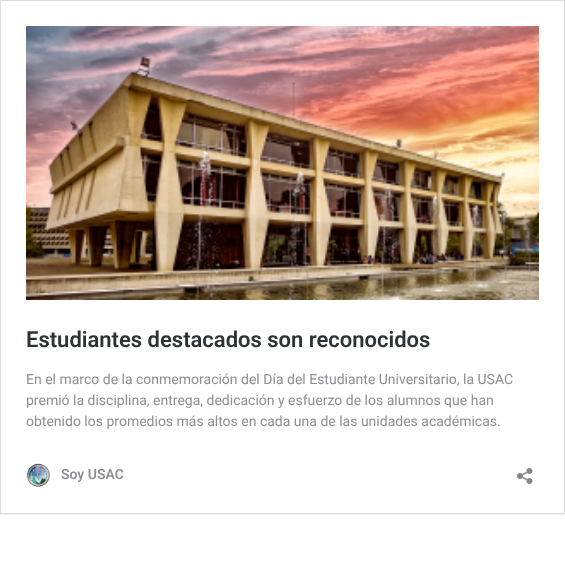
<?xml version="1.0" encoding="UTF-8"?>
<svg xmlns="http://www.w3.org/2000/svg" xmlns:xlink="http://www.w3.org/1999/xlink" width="565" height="585">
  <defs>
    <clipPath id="clip1"><rect x="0" y="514" width="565" height="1" /></clipPath>
  </defs>
  <rect width="100%" height="100%" fill="#ffffff" />
  <g clip-path="url(#clip1)">
    <rect y="1" width="565" height="514" fill="#000000" fill-opacity="0.05" filter="blur(0.5px)" />
  </g>
  <rect x="0.5" y="0.5" width="564" height="513" fill="none" stroke="#dcdcde" />
  <image x="26" y="26" width="513" height="274" xlink:href="image1.png" />
  <image x="26" y="463" width="25" height="24" xlink:href="image2.png" />
  <image x="517" y="468" width="16" height="16" xlink:href="image3.png" />
  <text x="26" y="347" style="font-family: Roboto; font-size: 22px; font-weight: 600; fill: #2c3338">Estudiantes destacados son reconocidos</text>
  <text x="26" y="384" style="font-family: Roboto; font-size: 14px; fill: #8c8f94">En el marco de la conmemoración del Día del Estudiante Universitario, la USAC</text>
  <text x="26" y="405" style="font-family: Roboto; font-size: 14px; fill: #8c8f94">premió la disciplina, entrega, dedicación y esfuerzo de los alumnos que han</text>
  <text x="26" y="426" style="font-family: Roboto; font-size: 14px; fill: #8c8f94">obtenido los promedios más altos en cada una de las unidades académicas.</text>
  <text x="61" y="479" style="font-family: Roboto; font-size: 14px; font-weight: 600; fill: #8c8f94">Soy USAC</text>
</svg>
